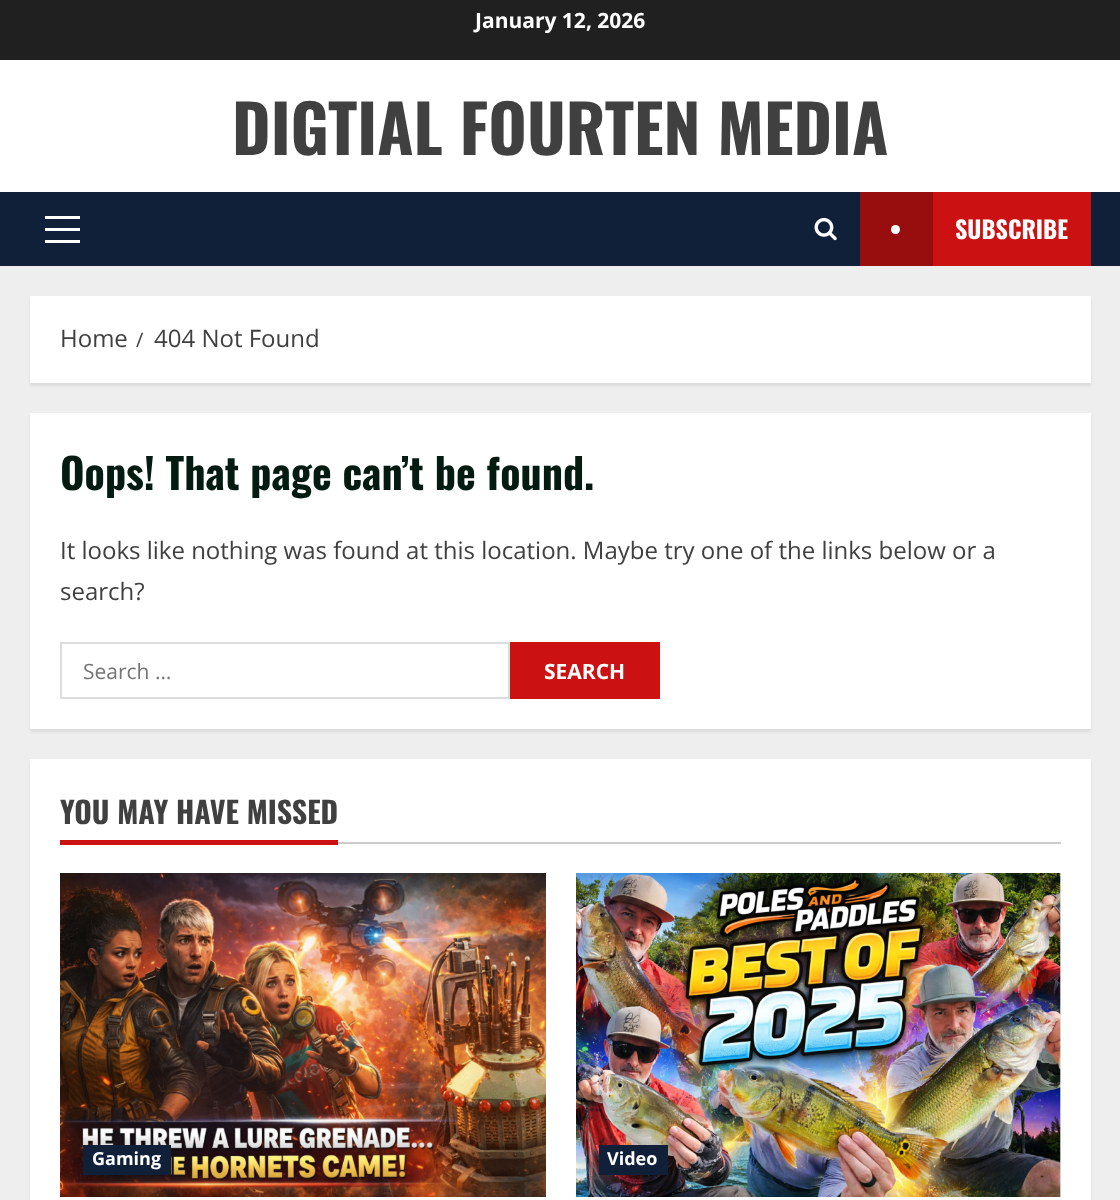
<?xml version="1.0" encoding="UTF-8"?>
<svg xmlns="http://www.w3.org/2000/svg" xmlns:xlink="http://www.w3.org/1999/xlink" width="1120" height="1200">
  <rect width="100%" height="100%" fill="#eeeeee" />
  <rect width="1120" height="60" fill="#202020" />
  <rect y="60" width="1120" height="132" fill="#ffffff" />
  <rect y="192" width="1120" height="74" fill="#102039" />
  <rect x="45" y="228" width="35" height="3" fill="#ffffff" />
  <rect x="45" y="216" width="35" height="3" fill="#ffffff" />
  <rect x="45" y="240" width="35" height="3" fill="#ffffff" />
  <image x="814" y="217" width="23" height="24" xlink:href="image1.png" />
  <rect x="933" y="192" width="158" height="74" fill="#cb1111" />
  <rect x="860" y="192" width="73" height="74" fill="#980d0d" />
  <circle cx="895.5" cy="229.5" r="4.5" fill="#ffffff" />
  <rect x="30" y="299" width="1061" height="87" fill="#000000" fill-opacity="0.08" filter="blur(1.5px)" />
  <rect x="30" y="296" width="1061" height="87" fill="#ffffff" />
  <rect x="30" y="416" width="1061" height="316" fill="#000000" fill-opacity="0.08" filter="blur(1.5px)" />
  <rect x="30" y="413" width="1061" height="316" fill="#ffffff" />
  <rect x="61" y="643" width="448" height="55" fill="none" stroke="#dcdcdc" stroke-width="2" />
  <rect x="510" y="642" width="150" height="57" fill="#cb1111" />
  <rect x="30" y="762" width="1061" height="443" fill="#000000" fill-opacity="0.08" filter="blur(1.5px)" />
  <rect x="30" y="759" width="1061" height="441" fill="#ffffff" />
  <rect x="338" y="842" width="723" height="2" fill="#cccccc" />
  <rect x="60" y="840" width="278" height="5" fill="#cb1111" />
  <image x="60" y="873" width="486" height="324" xlink:href="image2.png" />
  <rect x="83" y="1145" width="88" height="30" fill="#102039" />
  <rect x="1060" y="873" width="1" height="324" fill="#ececec" />
  <image x="576" y="873" width="485" height="324" xlink:href="image3.png" />
  <rect x="599" y="1145" width="69" height="30" fill="#102039" />
  <text x="475" y="28" style="font-family: Open Sans; font-size: 21px; font-weight: bold; fill: #ffffff">January 12, 2026</text>
  <text x="232" y="155" style="font-family: Oswald; font-size: 66px; font-weight: bold; fill: #404040">DIGTIAL FOURTEN MEDIA</text>
  <text x="955" y="239" style="font-family: Oswald; font-size: 24px; font-weight: bold; fill: #ffffff">SUBSCRIBE</text>
  <text x="60" y="347" style="font-family: Open Sans; font-size: 24px; fill: #404040">Home</text>
  <text x="136" y="347" style="font-family: Open Sans; font-size: 20px; fill: #404040">/</text>
  <text x="154" y="347" style="font-family: Open Sans; font-size: 24px; fill: #404040">404 Not Found</text>
  <text x="60" y="490" style="font-family: Oswald; font-size: 42px; font-weight: bold; fill: #031b11">Oops! That page can’t be found.</text>
  <text x="60" y="559" style="font-family: Open Sans; font-size: 24px; fill: #404040">It looks like nothing was found at this location. Maybe try one of the links below or a</text>
  <text x="60" y="600" style="font-family: Open Sans; font-size: 24px; fill: #404040">search?</text>
  <text x="83" y="679" style="font-family: Open Sans; font-size: 21px; fill: #757575">Search …</text>
  <text x="544" y="679" style="font-family: Open Sans; font-size: 21px; font-weight: bold; fill: #ffffff">SEARCH</text>
  <text x="60" y="824" style="font-family: Oswald; font-size: 30px; font-weight: bold; fill: #404040">YOU MAY HAVE MISSED</text>
  <text x="92" y="1165" style="font-family: Open Sans; font-size: 18px; font-weight: bold; fill: #ffffff">Gaming</text>
  <text x="607" y="1165" style="font-family: Open Sans; font-size: 18px; font-weight: bold; fill: #ffffff">Video</text>
</svg>
